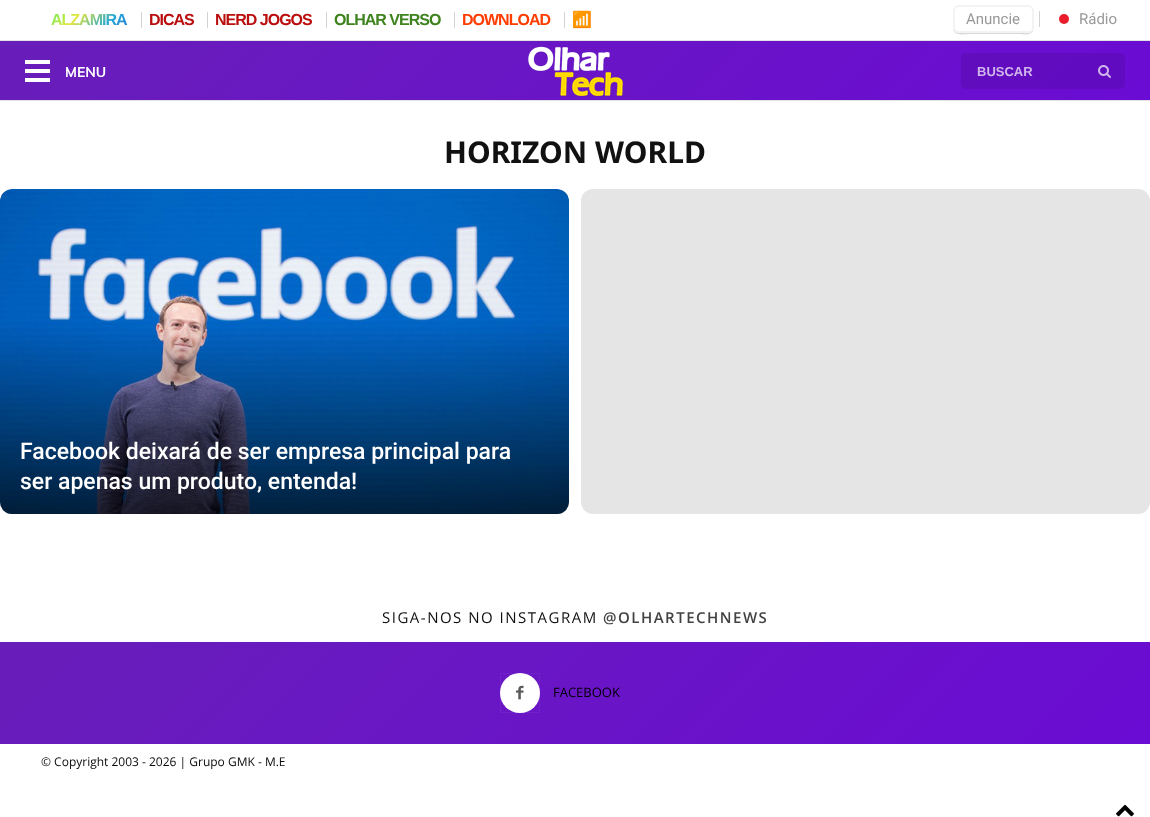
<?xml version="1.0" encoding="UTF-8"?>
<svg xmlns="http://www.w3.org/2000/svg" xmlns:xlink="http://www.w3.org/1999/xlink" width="1150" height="817">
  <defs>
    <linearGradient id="g1" gradientUnits="userSpaceOnUse" x1="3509" y1="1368" x2="1091" y2="-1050"><stop offset="0" stop-color="#540ba3" /><stop offset="0.33" stop-color="#993399" /><stop offset="0.67" stop-color="#6b06dc" /><stop offset="1" stop-color="#681eb9" /></linearGradient>
    <clipPath id="clip1"><rect x="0" y="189" width="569" height="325" rx="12" /></clipPath>
    <linearGradient id="g2" gradientUnits="userSpaceOnUse" x1="64" y1="-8" x2="121" y2="48"><stop offset="0" stop-color="#52ee5e" /><stop offset="0.33" stop-color="#e4e73c" /><stop offset="0.67" stop-color="#23a6d5" /><stop offset="1" stop-color="#236ad5" /></linearGradient>
    <linearGradient id="g3" gradientUnits="userSpaceOnUse" x1="285" y1="189" x2="285" y2="514"><stop offset="0.4" stop-color="#000000" stop-opacity="0" /><stop offset="1" stop-color="#000000" stop-opacity="0.7" /></linearGradient>
    <linearGradient id="g4" gradientUnits="userSpaceOnUse" x1="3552" y1="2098" x2="1048" y2="-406"><stop offset="0" stop-color="#540ba3" /><stop offset="0.33" stop-color="#993399" /><stop offset="0.67" stop-color="#6b06dc" /><stop offset="1" stop-color="#681eb9" /></linearGradient>
  </defs>
  <rect width="100%" height="100%" fill="#ffffff" />
  <rect x="141" y="12" width="1" height="16" fill="#d2d2d2" />
  <rect x="207" y="12" width="1" height="16" fill="#d2d2d2" />
  <rect x="326" y="12" width="1" height="16" fill="#d2d2d2" />
  <rect x="454" y="12" width="1" height="16" fill="#d2d2d2" />
  <rect x="564" y="12" width="1" height="16" fill="#d2d2d2" />
  <rect x="1039" y="11" width="1" height="16" fill="#d2d2d2" />
  <path d="M 953 27 c 0 10 11 7 17 7 h 46 c 7 0 18 3 18 -7 c 0 3 -3 6 -6 6 h -69 c -3 0 -6 -3 -6 -6 z" fill="#d9d9d9" />
  <rect x="954" y="6" width="79" height="26" rx="5" fill="none" stroke="#f3f3f3" stroke-width="2" />
  <circle cx="1064" cy="19" r="5" fill="#ea1d2c" />
  <rect y="41" width="1150" height="59" fill="url(#g1)" />
  <rect y="40" width="1150" height="1" fill="#e3e3e3" />
  <rect y="100" width="1150" height="1" fill="#e3e3e3" />
  <rect x="25" y="60" width="25" height="4" fill="#ffffff" />
  <rect x="25" y="69" width="25" height="4" fill="#ffffff" />
  <rect x="25" y="78" width="25" height="4" fill="#ffffff" />
  <image x="528" y="46" width="95" height="50" xlink:href="image1.png" />
  <rect x="961" y="53" width="164" height="36" rx="5" fill="#000000" fill-opacity="0.08" />
  <image x="1098" y="65" width="13" height="13" xlink:href="image2.png" />
  <rect y="189" width="569" height="325" rx="12" fill="#e5e5e5" />
  <g clip-path="url(#clip1)">
    <rect x="-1" y="189" width="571" height="327" rx="13" fill="#3c4043" fill-opacity="0.15" filter="blur(1.5px)" />
    <rect y="190" width="569" height="325" rx="12" fill="#3c4043" fill-opacity="0.3" filter="blur(1px)" />
  </g>
  <image x="0" y="189" width="569" height="325" xlink:href="image3.png" />
  <rect y="189" width="569" height="325" rx="12" fill="url(#g3)" />
  <rect x="581" y="189" width="569" height="325" rx="12" fill="#e5e5e5" />
  <rect y="642" width="1150" height="102" fill="url(#g4)" />
  <circle cx="520" cy="693" r="20" fill="#ffffff" />
  <image x="516" y="685" width="8" height="15" xlink:href="image4.png" />
  <rect x="500.5" y="673.5" width="39" height="39" fill="none" stroke="#ffffff" stroke-opacity="0.05" />
  <image x="1116" y="804" width="18" height="13" xlink:href="image5.png" />
  <text x="51" y="25" style="font-family: Liberation Sans; font-size: 16px; font-weight: bold; letter-spacing: -1px; fill: url(#g2)">ALZAMIRA</text>
  <text x="149" y="25" style="font-family: Liberation Sans; font-size: 16px; font-weight: bold; letter-spacing: -1px; fill: #ba0e0e">DICAS</text>
  <text x="215" y="25" style="font-family: Liberation Sans; font-size: 16px; font-weight: bold; letter-spacing: -1px; fill: #ba0e0e">NERD JOGOS</text>
  <text x="334" y="25" style="font-family: Liberation Sans; font-size: 16px; font-weight: bold; letter-spacing: -1px; fill: #3e831e">OLHAR VERSO</text>
  <text x="462" y="25" style="font-family: Liberation Sans; font-size: 16px; font-weight: bold; letter-spacing: -1px; fill: #ff3d00">DOWNLOAD</text>
  <text x="572" y="25" style="font-family: Noto Color Emoji; font-size: 16px; font-weight: bold; letter-spacing: -1px; fill: #005cef">📶</text>
  <text x="966" y="24" style="font-family: Roboto; font-size: 15px; fill: #999999">Anuncie</text>
  <text x="1079" y="24" style="font-family: Roboto; font-size: 15px; fill: #999999">Rádio</text>
  <text x="65" y="77" style="font-family: Muli; font-size: 14px; font-weight: bold; fill: #ffffff">MENU</text>
  <text x="977" y="76" style="font-family: Liberation Sans; font-size: 13px; font-weight: bold; fill: #d0b6ec">BUSCAR</text>
  <text x="444" y="163" style="font-family: Noto Sans; font-size: 30px; font-weight: bold; fill: #111111">HORIZON WORLD</text>
  <text x="20" y="459" style="font-family: Roboto; font-size: 23px; font-weight: 500; fill: #ffffff">Facebook deixará de ser empresa principal para</text>
  <text x="20" y="489" style="font-family: Roboto; font-size: 23px; font-weight: 500; fill: #ffffff">ser apenas um produto, entenda!</text>
  <text x="382" y="623" style="font-family: Open Sans; font-size: 15px; letter-spacing: 1.5px; fill: #111111">SIGA-NOS NO INSTAGRAM</text>
  <text x="603" y="623" style="font-family: Open Sans; font-size: 15px; font-weight: 600; letter-spacing: 1.5px; fill: #424242">@OLHARTECHNEWS</text>
  <text x="553" y="697" style="font-family: Open Sans; font-size: 13px; fill: #000000">FACEBOOK</text>
  <text x="41" y="766" style="font-family: Open Sans; font-size: 12px; fill: #0a0a0a">© Copyright 2003 - 2026 | Grupo GMK - M.E</text>
</svg>
